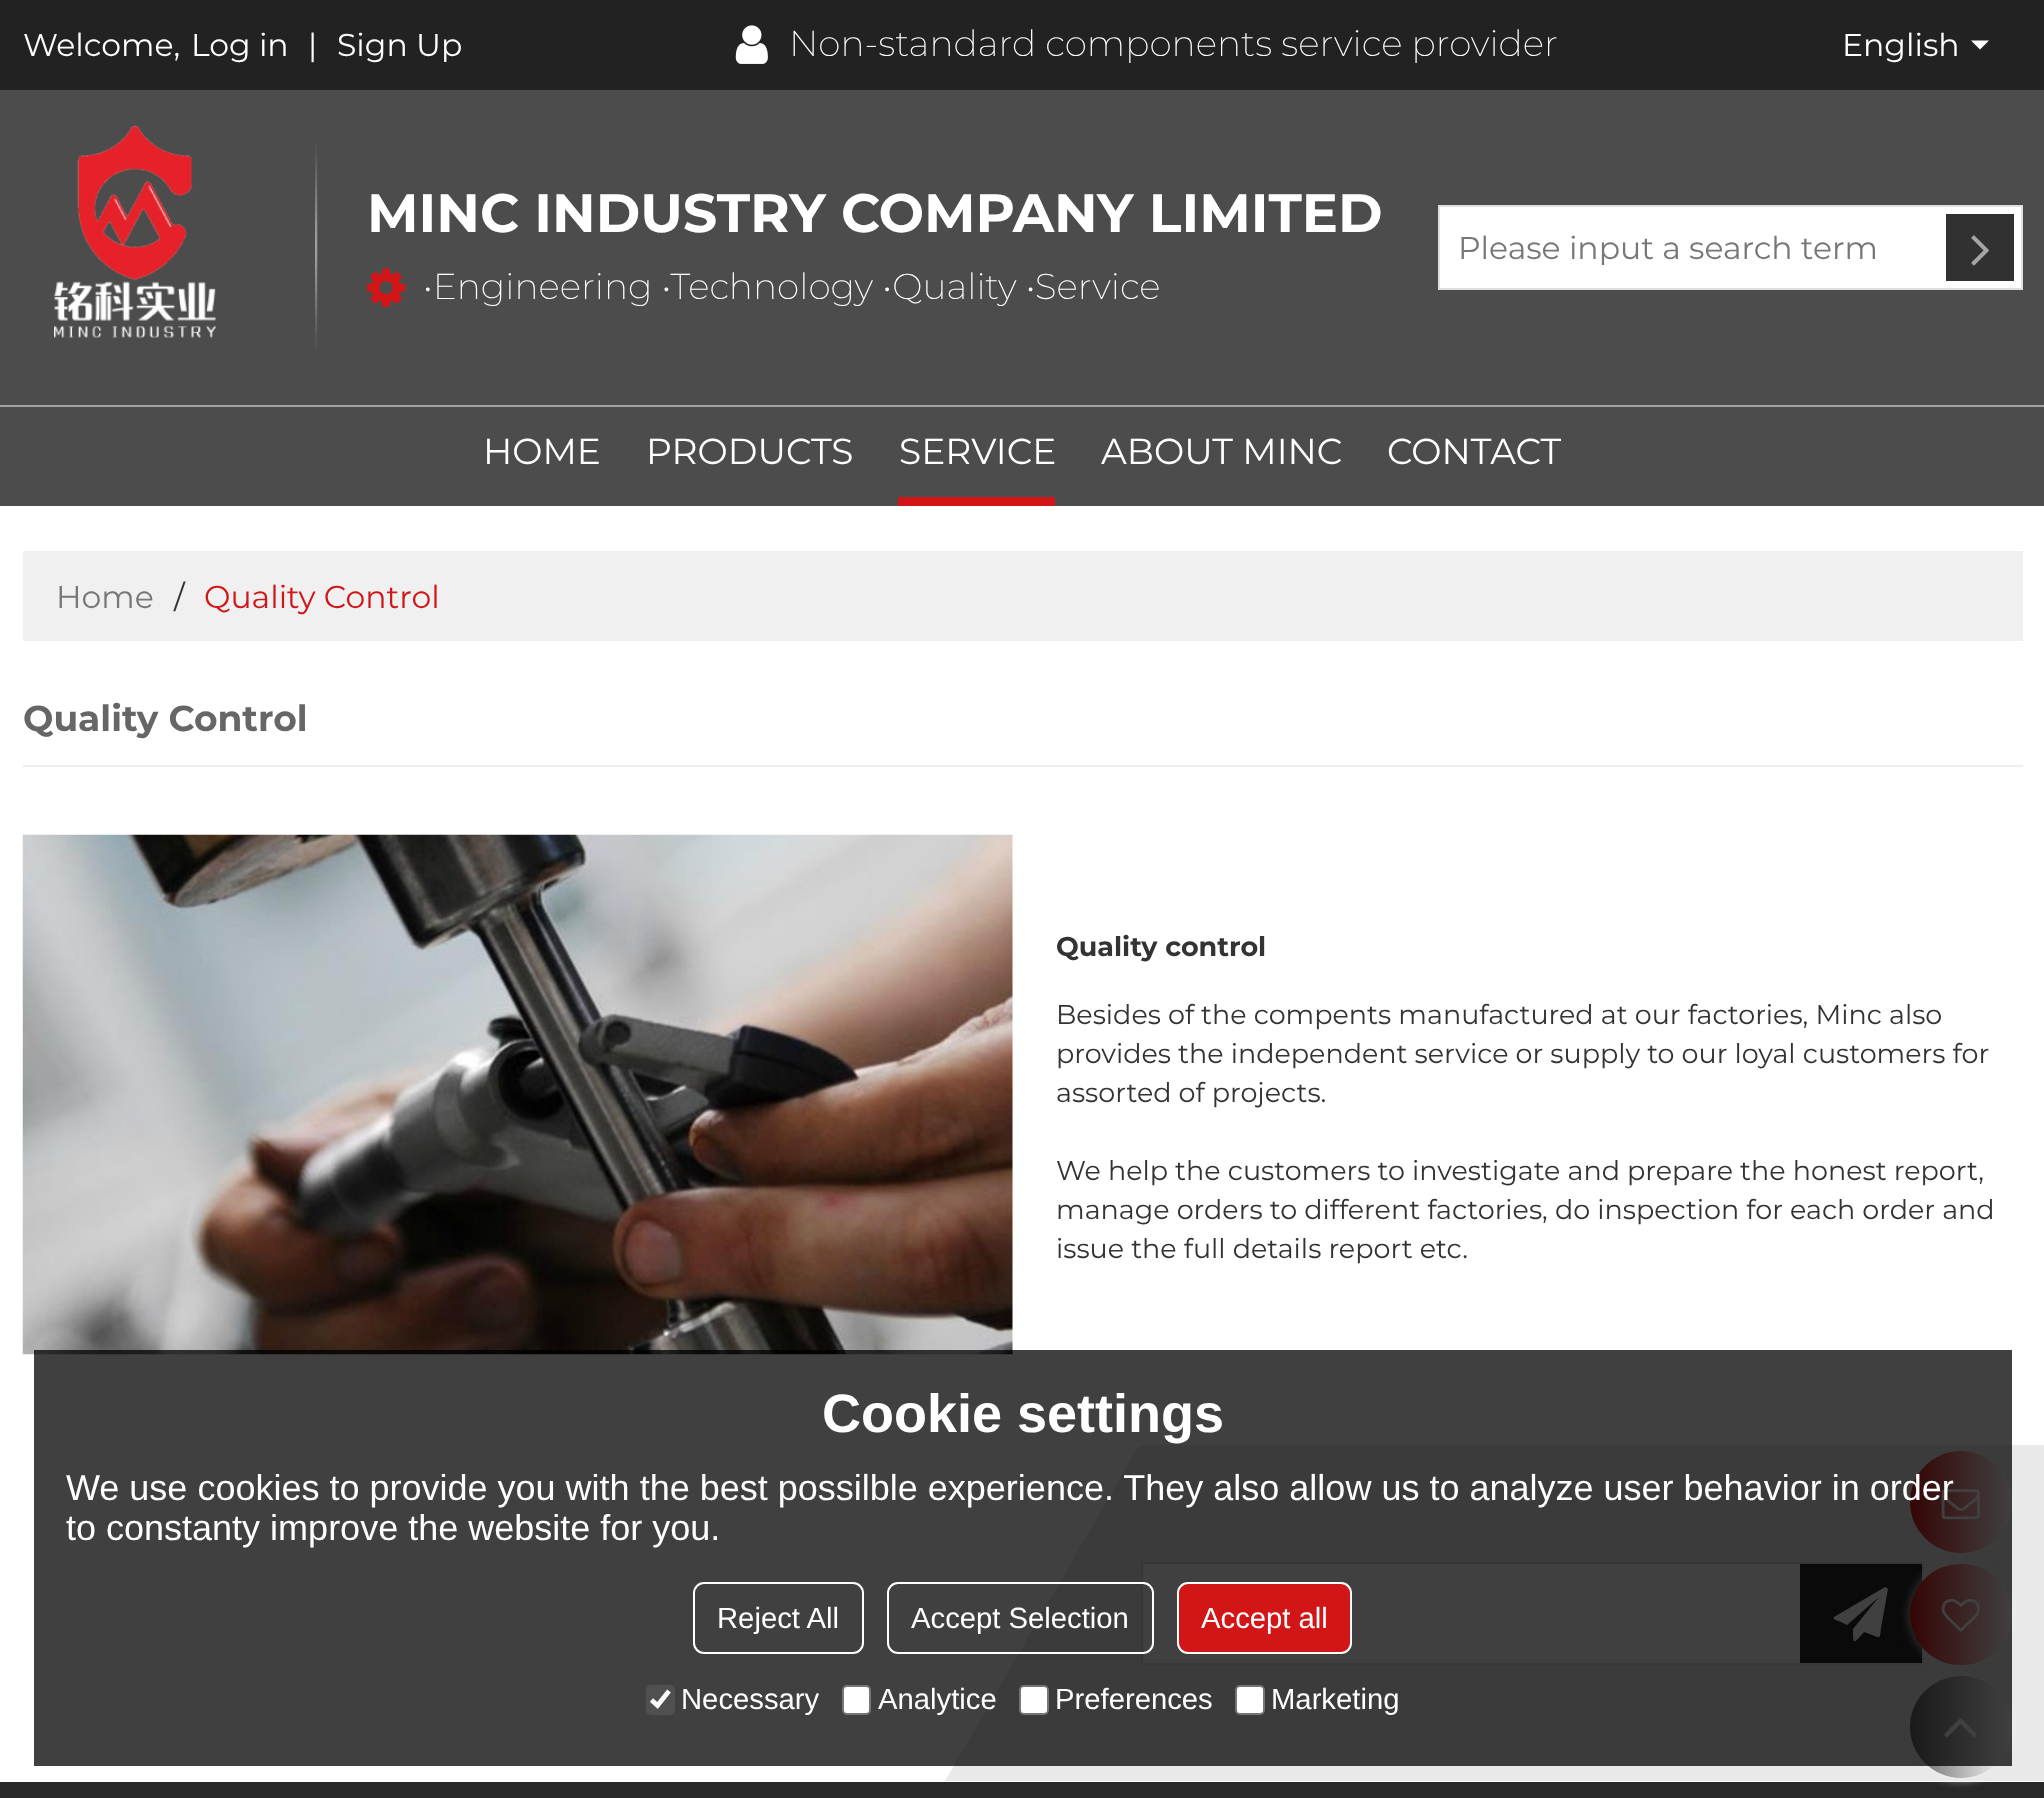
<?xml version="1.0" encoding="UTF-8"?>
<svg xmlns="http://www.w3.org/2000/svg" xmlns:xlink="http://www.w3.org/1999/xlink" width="2044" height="1798">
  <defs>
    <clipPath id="clip1"><rect y="1445" width="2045" height="337" /></clipPath>
    <linearGradient id="g1" gradientUnits="userSpaceOnUse" x1="1910" y1="1502" x2="2012" y2="1502"><stop offset="0" stop-color="#d21618" /><stop offset="1" stop-color="#ffffff" /></linearGradient>
    <linearGradient id="g2" gradientUnits="userSpaceOnUse" x1="1910" y1="1614" x2="2012" y2="1614"><stop offset="0" stop-color="#d21618" /><stop offset="1" stop-color="#ffffff" /></linearGradient>
    <linearGradient id="g3" gradientUnits="userSpaceOnUse" x1="1910" y1="1727" x2="2012" y2="1727"><stop offset="0" stop-color="#666666" /><stop offset="1" stop-color="#ffffff" /></linearGradient>
  </defs>
  <rect width="100%" height="100%" fill="#ffffff" />
  <rect width="2044" height="90" fill="#222222" />
  <image x="735" y="25" width="33" height="39" xlink:href="image1.png" />
  <path d="M 1971 40.5 h 18 l -9 9 z" fill="#ffffff" />
  <rect y="90" width="2044" height="315" fill="#4c4c4c" />
  <rect y="405" width="2044" height="2" fill="#a2a2a2" />
  <image x="54" y="125" width="163" height="213" xlink:href="image2.png" />
  <image x="315" y="143" width="3" height="207" xlink:href="image3.png" />
  <image x="367" y="268" width="39" height="39" xlink:href="image4.png" />
  <rect x="1439" y="206" width="583" height="83" fill="#ffffff" stroke="#dfdfdf" stroke-width="2" />
  <rect x="1946" y="214" width="68" height="67" fill="#313131" />
  <image x="1971" y="235" width="18" height="31" xlink:href="image5.png" />
  <rect y="407" width="2044" height="99" fill="#4c4c4c" />
  <rect x="898" y="497" width="157" height="9" fill="#d21618" />
  <rect x="23" y="551" width="2000" height="90" fill="#f0f0f0" />
  <rect x="23" y="765" width="2000" height="2" fill="#eeeeee" />
  <image x="22" y="834" width="991" height="521" xlink:href="image6.png" />
  <g clip-path="url(#clip1)">
    <path d="M 1140 1444 h 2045 l -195 337 h -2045 z" fill="#e9e9e9" />
  </g>
  <rect x="1142" y="1563" width="781" height="101" fill="none" stroke="#dcdcdc" stroke-width="2" />
  <rect x="1143" y="1564" width="657" height="99" fill="#ffffff" />
  <rect x="1800" y="1564" width="122" height="99" fill="#282828" />
  <path d="M 1887 1588 l 1 1 l -7 39 c -1 8 0 11 -6 8 l -11 -4 c -11 13 -11 13 -11 -3 l 26 -32 l -32 28 l -8 -4 c -1 0 -7 -2 -5 -4 l 51 -30 z" fill="#ffffff" />
  <rect y="1782" width="2044" height="16" fill="#282828" />
  <circle cx="1961" cy="1502" r="51" fill="url(#g1)" />
  <image x="1941" y="1489" width="39" height="31" xlink:href="image7.png" />
  <rect x="1910" y="1564" width="102" height="101" rx="50.5" fill="#eeeeee" filter="blur(5.5px)" />
  <rect x="1910" y="1564" width="102" height="101" rx="50.5" fill="url(#g2)" />
  <image x="1941" y="1599" width="39" height="33" xlink:href="image8.png" />
  <rect x="1910" y="1676" width="102" height="102" rx="51" fill="#eeeeee" filter="blur(5.5px)" />
  <circle cx="1961" cy="1727" r="51" fill="url(#g3)" />
  <image x="1944" y="1718" width="33" height="20" xlink:href="image9.png" />
  <rect x="34" y="1350" width="1978" height="416" fill="#000000" fill-opacity="0.75" />
  <rect x="694" y="1583" width="169" height="70" rx="10" fill="none" stroke="#ffffff" stroke-width="2" />
  <rect x="888" y="1583" width="265" height="70" rx="10" fill="none" stroke="#ffffff" stroke-width="2" />
  <rect x="1178" y="1583" width="173" height="70" rx="10" fill="#d21618" stroke="#ffffff" stroke-width="2" />
  <rect x="646" y="1685" width="29" height="30" rx="5" fill="#505050" />
  <path d="M 651.5 1700 l 6 5.5 l 11.5 -14.5" fill="none" stroke="#ffffff" stroke-width="4.7" />
  <rect x="843" y="1686" width="27" height="28" rx="4" fill="#ffffff" stroke="#767676" stroke-width="2" />
  <rect x="1020" y="1686" width="28" height="28" rx="4" fill="#ffffff" stroke="#767676" stroke-width="2" />
  <rect x="1236" y="1686" width="28" height="28" rx="4" fill="#ffffff" stroke="#767676" stroke-width="2" />
  <text x="23" y="56" style="font-family: Montserrat; font-size: 31.5px; fill: #ffffff">Welcome,</text>
  <text x="191" y="56" style="font-family: Montserrat; font-size: 31.5px; fill: #ffffff">Log in</text>
  <text x="308" y="56" style="font-family: Montserrat; font-size: 31.5px; fill: #ffffff">|</text>
  <text x="337" y="56" style="font-family: Montserrat; font-size: 31.5px; fill: #ffffff">Sign Up</text>
  <text x="789" y="56" style="font-family: Montserrat; font-size: 36px; font-weight: 200; fill: #ffffff">Non-standard components service provider</text>
  <text x="1842" y="56" style="font-family: Montserrat; font-size: 31.5px; fill: #ffffff">English</text>
  <text x="367" y="232" style="font-family: Montserrat; font-size: 54px; font-weight: bold; fill: #ffffff">MINC INDUSTRY COMPANY LIMITED</text>
  <text x="423" y="299" style="font-family: Montserrat; font-size: 36px; font-weight: 200; fill: #ffffff">•Engineering •Technology •Quality •Service</text>
  <text x="1458" y="259" style="font-family: Montserrat; font-size: 31.5px; fill: #777777">Please input a search term</text>
  <text x="483" y="464" style="font-family: Montserrat; font-size: 36px; fill: #ffffff">HOME</text>
  <text x="646" y="464" style="font-family: Montserrat; font-size: 36px; fill: #ffffff">PRODUCTS</text>
  <text x="899" y="464" style="font-family: Montserrat; font-size: 36px; fill: #ffffff">SERVICE</text>
  <text x="1101" y="464" style="font-family: Montserrat; font-size: 36px; fill: #ffffff">ABOUT MINC</text>
  <text x="1387" y="464" style="font-family: Montserrat; font-size: 36px; fill: #ffffff">CONTACT</text>
  <text x="56" y="608" style="font-family: Montserrat; font-size: 31.5px; fill: #777777">Home</text>
  <text x="174" y="608" style="font-family: Montserrat; font-size: 31.5px; fill: #333333">/</text>
  <text x="204" y="608" style="font-family: Montserrat; font-size: 31.5px; fill: #d21618">Quality Control</text>
  <text x="23" y="731" style="font-family: Montserrat; font-size: 36px; font-weight: bold; fill: #666666">Quality Control</text>
  <text x="1056" y="956" style="font-family: Montserrat; font-size: 27px; font-weight: bold; fill: #333333">Quality control</text>
  <text x="1056" y="1024" style="font-family: Montserrat; font-size: 27px; fill: #333333">Besides of the compents manufactured at our factories, Minc also</text>
  <text x="1056" y="1063" style="font-family: Montserrat; font-size: 27px; fill: #333333">provides the independent service or supply to our loyal customers for</text>
  <text x="1056" y="1102" style="font-family: Montserrat; font-size: 27px; fill: #333333">assorted of projects.</text>
  <text x="1056" y="1180" style="font-family: Montserrat; font-size: 27px; fill: #333333">We help the customers to investigate and prepare the honest report,</text>
  <text x="1056" y="1219" style="font-family: Montserrat; font-size: 27px; fill: #333333">manage orders to different factories, do inspection for each order and</text>
  <text x="1056" y="1258" style="font-family: Montserrat; font-size: 27px; fill: #333333">issue the full details report etc.</text>
  <text x="822" y="1432" style="font-family: Liberation Sans; font-size: 54px; font-weight: bold; fill: #ffffff">Cookie settings</text>
  <text x="66" y="1500" style="font-family: Liberation Sans; font-size: 36px; fill: #ffffff">We use cookies to provide you with the best possilble experience. They also allow us to analyze user behavior in order</text>
  <text x="66" y="1540" style="font-family: Liberation Sans; font-size: 36px; fill: #ffffff">to constanty improve the website for you.</text>
  <text x="717" y="1628" style="font-family: Liberation Sans; font-size: 29.25px; fill: #ffffff">Reject All</text>
  <text x="911" y="1628" style="font-family: Liberation Sans; font-size: 29.25px; fill: #ffffff">Accept Selection</text>
  <text x="1201" y="1628" style="font-family: Liberation Sans; font-size: 29.25px; fill: #ffffff">Accept all</text>
  <text x="681" y="1709" style="font-family: Liberation Sans; font-size: 29.25px; fill: #ffffff">Necessary</text>
  <text x="878" y="1709" style="font-family: Liberation Sans; font-size: 29.25px; fill: #ffffff">Analytice</text>
  <text x="1055" y="1709" style="font-family: Liberation Sans; font-size: 29.25px; fill: #ffffff">Preferences</text>
  <text x="1271" y="1709" style="font-family: Liberation Sans; font-size: 29.25px; fill: #ffffff">Marketing</text>
</svg>
